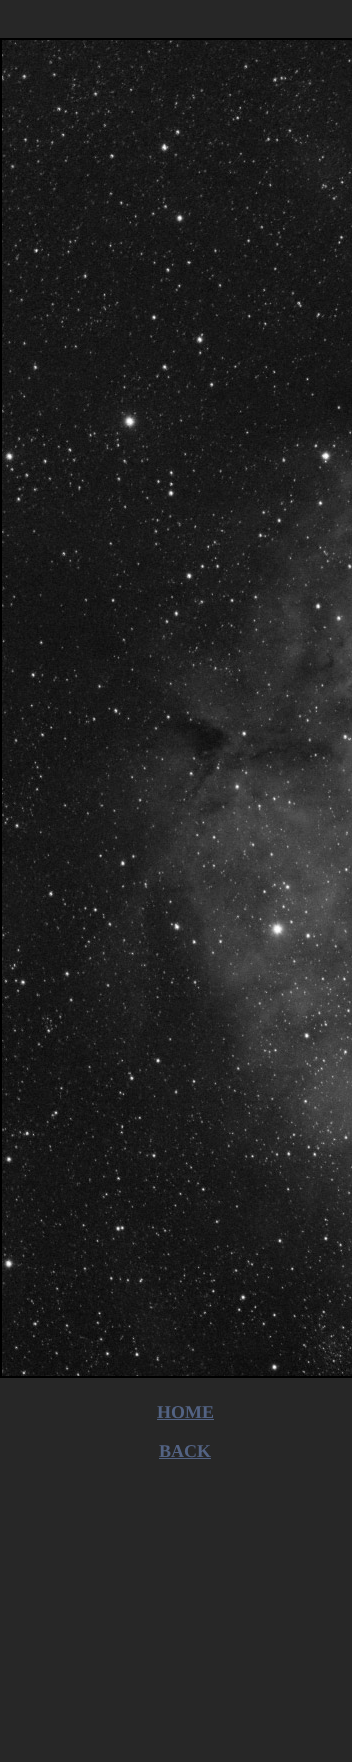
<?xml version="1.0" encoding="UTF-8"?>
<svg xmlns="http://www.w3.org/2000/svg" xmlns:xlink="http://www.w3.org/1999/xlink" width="352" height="1762">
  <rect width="100%" height="100%" fill="#272727" />
  <rect x="1" y="39" width="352" height="1338" fill="none" stroke="#000000" stroke-width="2" />
  <image x="2" y="40" width="350" height="1336" xlink:href="image1.png" />
  <rect x="157" y="1419" width="57" height="1" fill="#536384" />
  <rect x="159" y="1458" width="52" height="1" fill="#536384" />
  <text x="157" y="1418" style="font-family: Liberation Serif; font-size: 18px; font-weight: bold; fill: #536384">HOME</text>
  <text x="159" y="1457" style="font-family: Liberation Serif; font-size: 18px; font-weight: bold; fill: #536384">BACK</text>
</svg>
